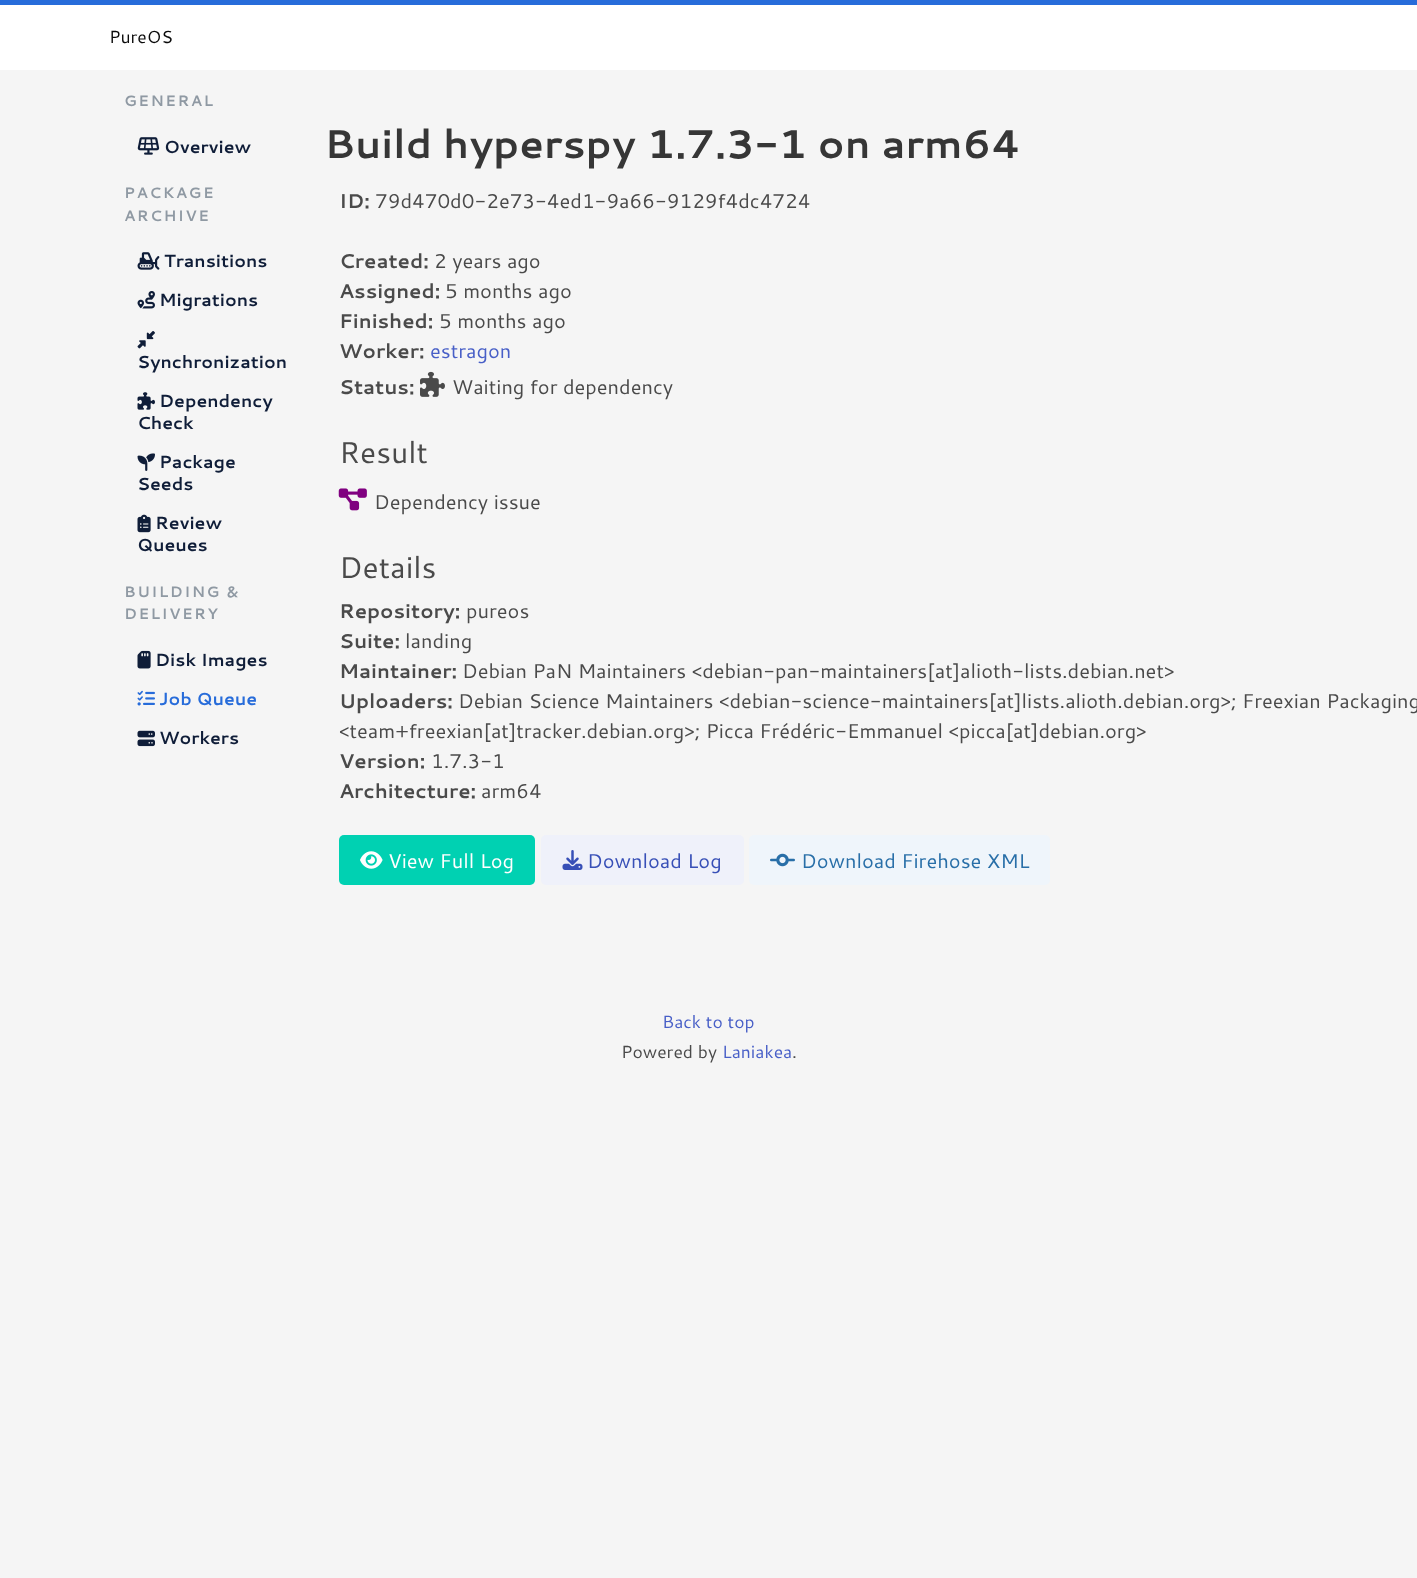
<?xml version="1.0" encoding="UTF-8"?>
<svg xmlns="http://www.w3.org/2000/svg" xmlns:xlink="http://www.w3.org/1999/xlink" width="1417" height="1578">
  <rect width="100%" height="100%" fill="#f5f5f5" />
  <rect y="5" width="1417" height="65" fill="#ffffff" />
  <rect width="1417" height="5" fill="#276cda" />
  <image x="137" y="137" width="23" height="18" xlink:href="image1.png" />
  <image x="137" y="252" width="23" height="18" xlink:href="image2.png" />
  <image x="137" y="291" width="18" height="18" xlink:href="image3.png" />
  <image x="137" y="331" width="18" height="18" xlink:href="image4.png" />
  <image x="137" y="392" width="18" height="18" xlink:href="image5.png" />
  <image x="137" y="453" width="18" height="18" xlink:href="image6.png" />
  <image x="137" y="514" width="14" height="19" xlink:href="image7.png" />
  <image x="137" y="650" width="14" height="19" xlink:href="image8.png" />
  <image x="137" y="690" width="18" height="16" xlink:href="image9.png" />
  <image x="137" y="730" width="18" height="17" xlink:href="image10.png" />
  <image x="420" y="371" width="25" height="26" xlink:href="image11.png" />
  <image x="338" y="488" width="29" height="23" xlink:href="image12.png" />
  <rect x="339" y="835" width="196" height="50" rx="5" fill="#00d1b2" />
  <image x="360" y="851" width="23" height="18" xlink:href="image13.png" />
  <rect x="541" y="835" width="203" height="50" rx="5" fill="#eff1fa" />
  <image x="562" y="850" width="21" height="20" xlink:href="image14.png" />
  <rect x="749" y="835" width="301" height="50" rx="5" fill="#eff5fb" />
  <image x="770" y="853" width="25" height="14" xlink:href="image15.png" />
  <text x="109" y="43" style="font-family: Cantarell; font-size: 17.5px; fill: #0a0a0a">PureOS</text>
  <text x="124" y="106" style="font-family: Cantarell; font-size: 15px; font-weight: bold; letter-spacing: 1.5px; fill: #8f99a3">GENERAL</text>
  <text x="164" y="153" style="font-family: Cantarell; font-size: 17.5px; font-weight: bold; fill: #0f1d38">Overview</text>
  <text x="124" y="198" style="font-family: Cantarell; font-size: 15px; font-weight: bold; letter-spacing: 1.5px; fill: #8f99a3">PACKAGE</text>
  <text x="124" y="221" style="font-family: Cantarell; font-size: 15px; font-weight: bold; letter-spacing: 1.5px; fill: #8f99a3">ARCHIVE</text>
  <text x="164" y="267" style="font-family: Cantarell; font-size: 17.5px; font-weight: bold; fill: #0f1d38">Transitions</text>
  <text x="159" y="306" style="font-family: Cantarell; font-size: 17.5px; font-weight: bold; fill: #0f1d38">Migrations</text>
  <text x="137" y="368" style="font-family: Cantarell; font-size: 17.5px; font-weight: bold; fill: #0f1d38">Synchronization</text>
  <text x="159" y="407" style="font-family: Cantarell; font-size: 17.5px; font-weight: bold; fill: #0f1d38">Dependency</text>
  <text x="137" y="429" style="font-family: Cantarell; font-size: 17.5px; font-weight: bold; fill: #0f1d38">Check</text>
  <text x="159" y="468" style="font-family: Cantarell; font-size: 17.5px; font-weight: bold; fill: #0f1d38">Package</text>
  <text x="137" y="490" style="font-family: Cantarell; font-size: 17.5px; font-weight: bold; fill: #0f1d38">Seeds</text>
  <text x="155" y="529" style="font-family: Cantarell; font-size: 17.5px; font-weight: bold; fill: #0f1d38">Review</text>
  <text x="137" y="551" style="font-family: Cantarell; font-size: 17.5px; font-weight: bold; fill: #0f1d38">Queues</text>
  <text x="124" y="597" style="font-family: Cantarell; font-size: 15px; font-weight: bold; letter-spacing: 1.5px; fill: #8f99a3">BUILDING &amp;</text>
  <text x="124" y="619" style="font-family: Cantarell; font-size: 15px; font-weight: bold; letter-spacing: 1.5px; fill: #8f99a3">DELIVERY</text>
  <text x="155" y="666" style="font-family: Cantarell; font-size: 17.5px; font-weight: bold; fill: #0f1d38">Disk Images</text>
  <text x="159" y="705" style="font-family: Cantarell; font-size: 17.5px; font-weight: bold; fill: #276cda">Job Queue</text>
  <text x="159" y="744" style="font-family: Cantarell; font-size: 17.5px; font-weight: bold; fill: #0f1d38">Workers</text>
  <text x="324" y="158" style="font-family: Cantarell; font-size: 40px; font-weight: bold; fill: #363636">Build hyperspy 1.7.3-1 on arm64</text>
  <text x="339" y="208" style="font-family: Cantarell; font-size: 20px; font-weight: bold; fill: #4a4a4a">ID:</text>
  <text x="375" y="208" style="font-family: Cantarell; font-size: 20px; fill: #4a4a4a">79d470d0-2e73-4ed1-9a66-9129f4dc4724</text>
  <text x="339" y="268" style="font-family: Cantarell; font-size: 20px; font-weight: bold; fill: #4a4a4a">Created:</text>
  <text x="434" y="268" style="font-family: Cantarell; font-size: 20px; fill: #4a4a4a">2 years ago</text>
  <text x="339" y="298" style="font-family: Cantarell; font-size: 20px; font-weight: bold; fill: #4a4a4a">Assigned:</text>
  <text x="445" y="298" style="font-family: Cantarell; font-size: 20px; fill: #4a4a4a">5 months ago</text>
  <text x="339" y="328" style="font-family: Cantarell; font-size: 20px; font-weight: bold; fill: #4a4a4a">Finished:</text>
  <text x="439" y="328" style="font-family: Cantarell; font-size: 20px; fill: #4a4a4a">5 months ago</text>
  <text x="339" y="358" style="font-family: Cantarell; font-size: 20px; font-weight: bold; fill: #4a4a4a">Worker:</text>
  <text x="430" y="358" style="font-family: Cantarell; font-size: 20px; fill: #485fc7">estragon</text>
  <text x="339" y="394" style="font-family: Cantarell; font-size: 20px; font-weight: bold; fill: #4a4a4a">Status:</text>
  <text x="452" y="394" style="font-family: Cantarell; font-size: 20px; fill: #4a4a4a">Waiting for dependency</text>
  <text x="339" y="463" style="font-family: Cantarell; font-size: 30px; fill: #4a4a4a">Result</text>
  <text x="374" y="509" style="font-family: Cantarell; font-size: 20px; fill: #4a4a4a">Dependency issue</text>
  <text x="339" y="578" style="font-family: Cantarell; font-size: 30px; fill: #4a4a4a">Details</text>
  <text x="339" y="618" style="font-family: Cantarell; font-size: 20px; font-weight: bold; fill: #4a4a4a">Repository:</text>
  <text x="466" y="618" style="font-family: Cantarell; font-size: 20px; fill: #4a4a4a">pureos</text>
  <text x="339" y="648" style="font-family: Cantarell; font-size: 20px; font-weight: bold; fill: #4a4a4a">Suite:</text>
  <text x="405" y="648" style="font-family: Cantarell; font-size: 20px; fill: #4a4a4a">landing</text>
  <text x="339" y="678" style="font-family: Cantarell; font-size: 20px; font-weight: bold; fill: #4a4a4a">Maintainer:</text>
  <text x="462" y="678" style="font-family: Cantarell; font-size: 20px; fill: #4a4a4a">Debian PaN Maintainers &lt;debian-pan-maintainers[at]alioth-lists.debian.net&gt;</text>
  <text x="339" y="708" style="font-family: Cantarell; font-size: 20px; font-weight: bold; fill: #4a4a4a">Uploaders:</text>
  <text x="458" y="708" style="font-family: Cantarell; font-size: 20px; fill: #4a4a4a">Debian Science Maintainers &lt;debian-science-maintainers[at]lists.alioth.debian.org&gt;; Freexian Packaging</text>
  <text x="339" y="738" style="font-family: Cantarell; font-size: 20px; fill: #4a4a4a">&lt;team+freexian[at]tracker.debian.org&gt;; Picca Frédéric-Emmanuel &lt;picca[at]debian.org&gt;</text>
  <text x="339" y="768" style="font-family: Cantarell; font-size: 20px; font-weight: bold; fill: #4a4a4a">Version:</text>
  <text x="431" y="768" style="font-family: Cantarell; font-size: 20px; fill: #4a4a4a">1.7.3-1</text>
  <text x="339" y="798" style="font-family: Cantarell; font-size: 20px; font-weight: bold; fill: #4a4a4a">Architecture:</text>
  <text x="481" y="798" style="font-family: Cantarell; font-size: 20px; fill: #4a4a4a">arm64</text>
  <text x="388" y="868" style="font-family: Cantarell; font-size: 20px; fill: #ffffff">View Full Log</text>
  <text x="587" y="868" style="font-family: Cantarell; font-size: 20px; fill: #3850b7">Download Log</text>
  <text x="801" y="868" style="font-family: Cantarell; font-size: 20px; fill: #296fa8">Download Firehose XML</text>
  <text x="662" y="1028" style="font-family: Cantarell; font-size: 17.5px; fill: #485fc7">Back to top</text>
  <text x="621" y="1058" style="font-family: Cantarell; font-size: 17.5px; fill: #4a4a4a">Powered by</text>
  <text x="722" y="1058" style="font-family: Cantarell; font-size: 17.5px; fill: #485fc7">Laniakea</text>
  <text x="792" y="1058" style="font-family: Cantarell; font-size: 17.5px; fill: #4a4a4a">.</text>
</svg>
